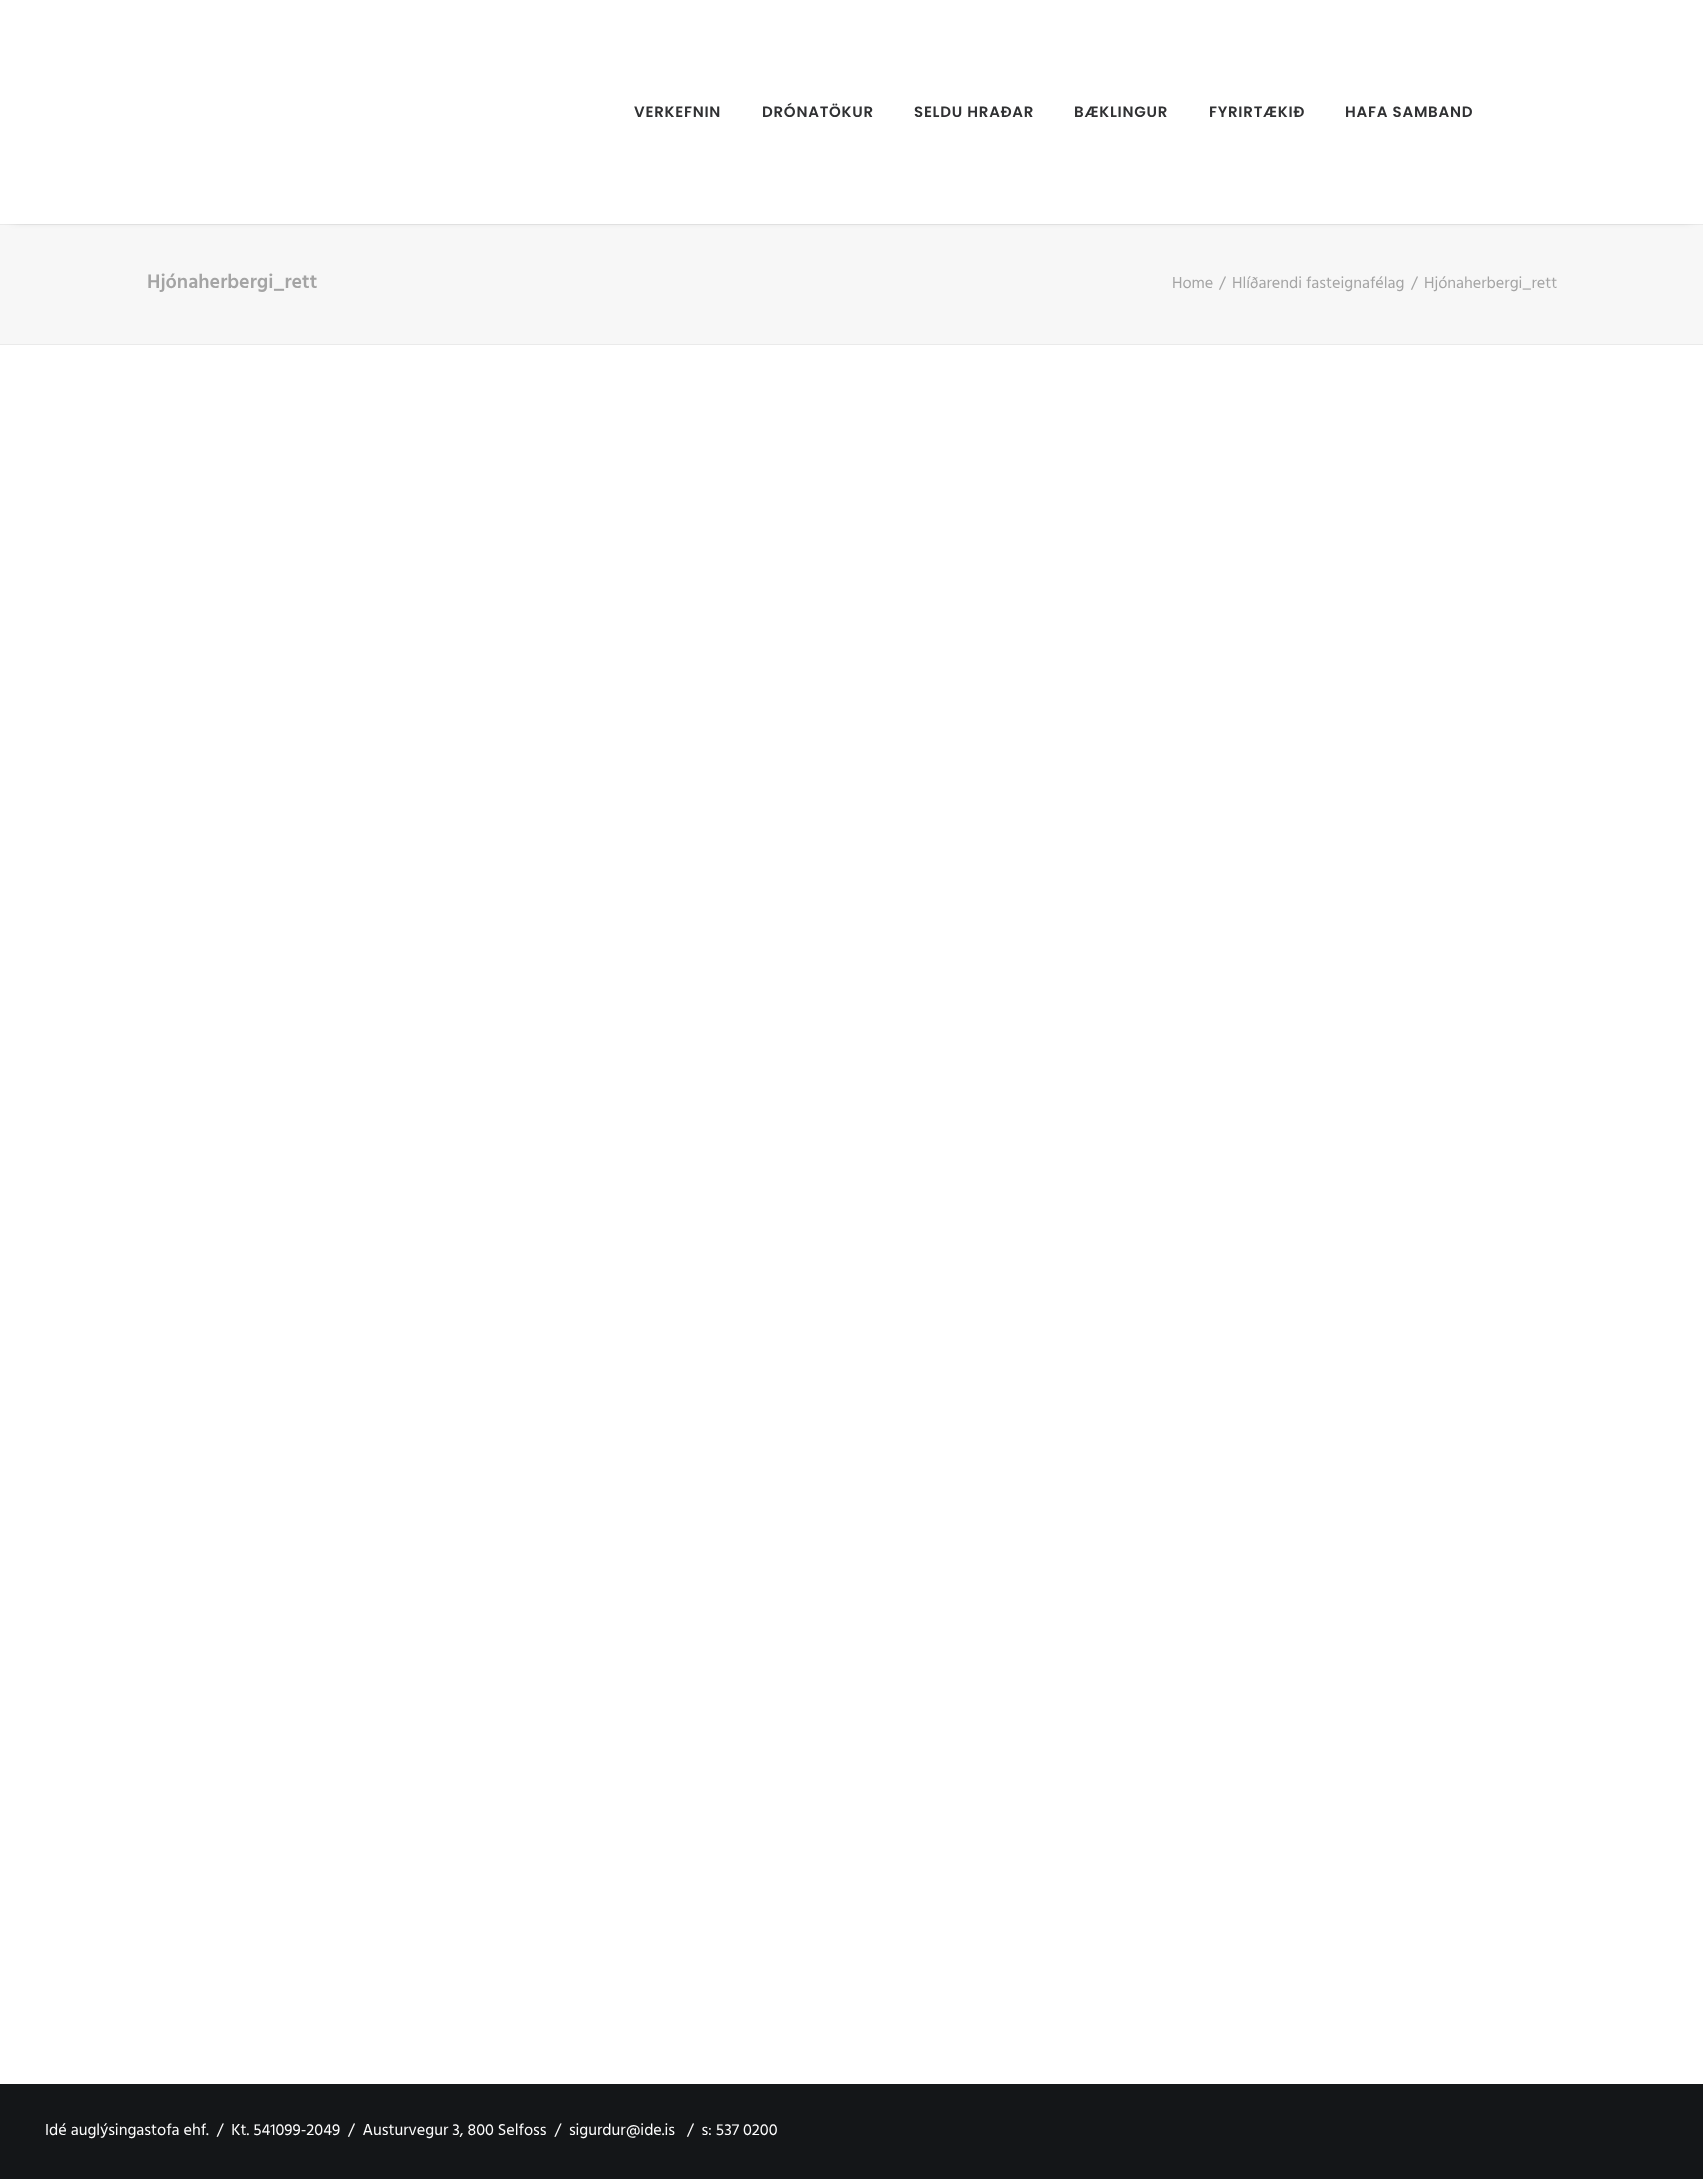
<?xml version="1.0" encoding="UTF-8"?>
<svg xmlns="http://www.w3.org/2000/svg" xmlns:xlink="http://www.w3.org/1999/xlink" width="1703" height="2179">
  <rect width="100%" height="100%" fill="#ffffff" />
  <rect y="225" width="1703" height="119" fill="#f7f7f7" />
  <rect y="224" width="1703" height="1" fill="#eaeaea" />
  <rect x="13" y="18" width="1678" height="198" fill="#000000" fill-opacity="0.6" filter="blur(6px)" />
  <rect y="5" width="1703" height="219" fill="#ffffff" />
  <rect y="344" width="1703" height="1" fill="#eaeaea" />
  <rect y="2084" width="1703" height="95" fill="#141618" />
  <text x="634" y="117" style="font-family: Poppins; font-size: 15px; font-weight: 600; letter-spacing: 0.75px; fill: #303133">VERKEFNIN</text>
  <text x="762" y="117" style="font-family: Poppins; font-size: 15px; font-weight: 600; letter-spacing: 0.75px; fill: #303133">DRÓNATÖKUR</text>
  <text x="914" y="117" style="font-family: Poppins; font-size: 15px; font-weight: 600; letter-spacing: 0.75px; fill: #303133">SELDU HRAÐAR</text>
  <text x="1074" y="117" style="font-family: Poppins; font-size: 15px; font-weight: 600; letter-spacing: 0.75px; fill: #303133">BÆKLINGUR</text>
  <text x="1209" y="117" style="font-family: Poppins; font-size: 15px; font-weight: 600; letter-spacing: 0.75px; fill: #303133">FYRIRTÆKIÐ</text>
  <text x="1345" y="117" style="font-family: Poppins; font-size: 15px; font-weight: 600; letter-spacing: 0.75px; fill: #303133">HAFA SAMBAND</text>
  <text x="147" y="288" style="font-family: Hind; font-size: 20px; font-weight: 600; fill: #a4a4a4">Hjónaherbergi_rett</text>
  <text x="1172" y="288" style="font-family: Hind; font-size: 16.25px; fill: #a4a4a4">Home</text>
  <text x="1219" y="288" style="font-family: Hind; font-size: 16.25px; fill: #a4a4a4">/</text>
  <text x="1232" y="288" style="font-family: Hind; font-size: 16.25px; fill: #a4a4a4">Hlíðarendi fasteignafélag</text>
  <text x="1411" y="288" style="font-family: Hind; font-size: 16.25px; fill: #a4a4a4">/</text>
  <text x="1424" y="288" style="font-family: Hind; font-size: 16.25px; fill: #a4a4a4">Hjónaherbergi_rett</text>
  <text x="45" y="2135" style="font-family: Hind; font-size: 16.25px; fill: #ffffff" xml:space="preserve">Idé auglýsingastofa ehf.  /  Kt. 541099-2049  /  Austurvegur 3, 800 Selfoss  /  sigurdur@ide.is   /  s: 537 0200</text>
</svg>
